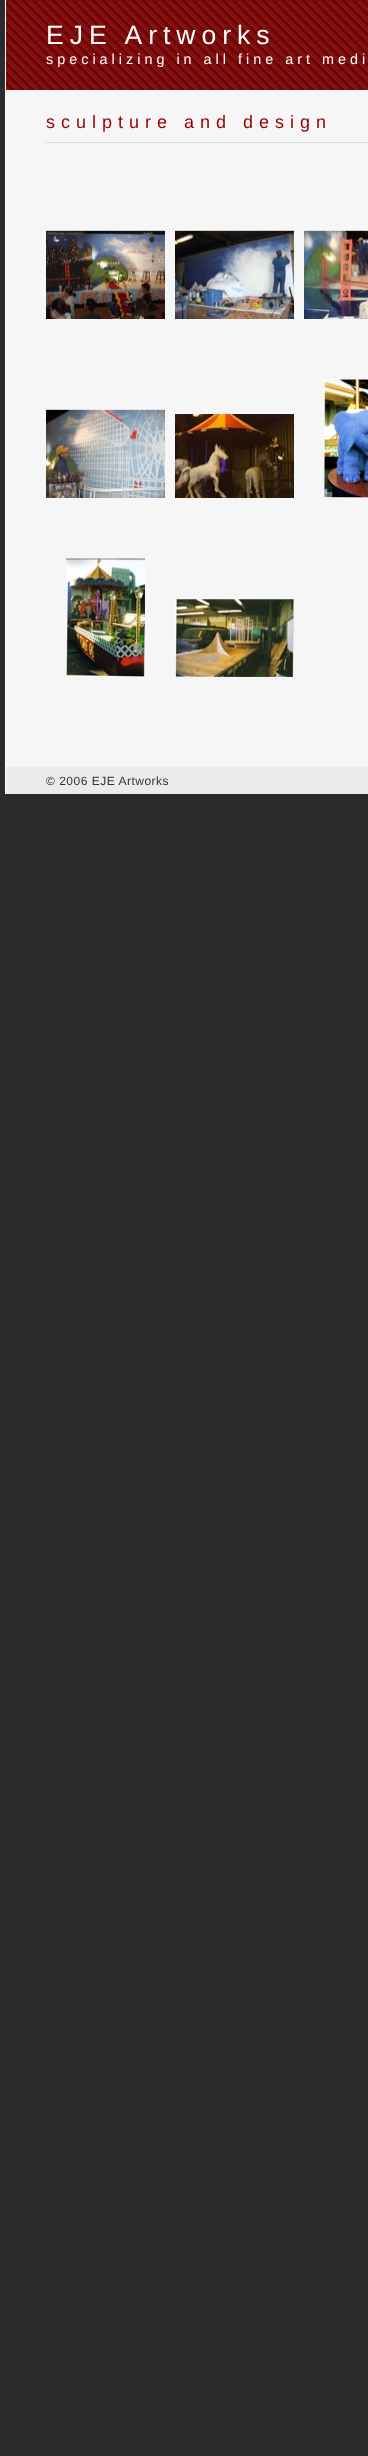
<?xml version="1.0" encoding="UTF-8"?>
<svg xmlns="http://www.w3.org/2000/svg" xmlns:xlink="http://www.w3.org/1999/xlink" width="368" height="2456">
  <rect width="100%" height="100%" fill="#2b2b2b" />
  <rect x="6" y="90" width="362" height="675" fill="#f7f6f7" />
  <rect x="5" width="1" height="794" fill="#ffffff" />
  <image x="6" y="0" width="362" height="90" xlink:href="image1.png" />
  <path d="M 46 142.5 h 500" fill="none" stroke="#bfbfbf" stroke-dasharray="1 1" />
  <image x="46" y="230" width="119" height="89" xlink:href="image2.png" />
  <image x="175" y="230" width="119" height="89" xlink:href="image3.png" />
  <image x="304" y="230" width="64" height="89" xlink:href="image4.png" />
  <image x="46" y="409" width="119" height="89" xlink:href="image5.png" />
  <image x="175" y="413" width="119" height="85" xlink:href="image6.png" />
  <image x="324" y="379" width="44" height="119" xlink:href="image7.png" />
  <image x="66" y="558" width="79" height="119" xlink:href="image8.png" />
  <image x="175" y="599" width="119" height="78" xlink:href="image9.png" />
  <rect x="6" y="766" width="362" height="28" fill="#ebebeb" />
  <rect x="6" y="765" width="362" height="1" fill="#ffffff" />
  <text x="46" y="44" style="font-family: Liberation Sans; font-size: 26.5px; letter-spacing: 6px; fill: #ffffff">EJE Artworks</text>
  <text x="46" y="64" style="font-family: Liberation Sans; font-size: 14.4px; letter-spacing: 4px; fill: #ffffff">specializing in all fine art medi</text>
  <text x="46" y="128" style="font-family: Liberation Sans; font-size: 18px; letter-spacing: 6px; fill: #950101">sculpture and design</text>
  <text x="46" y="785" style="font-family: Liberation Sans; font-size: 12px; letter-spacing: 0.5px; fill: #333333">© 2006 EJE Artworks</text>
</svg>
